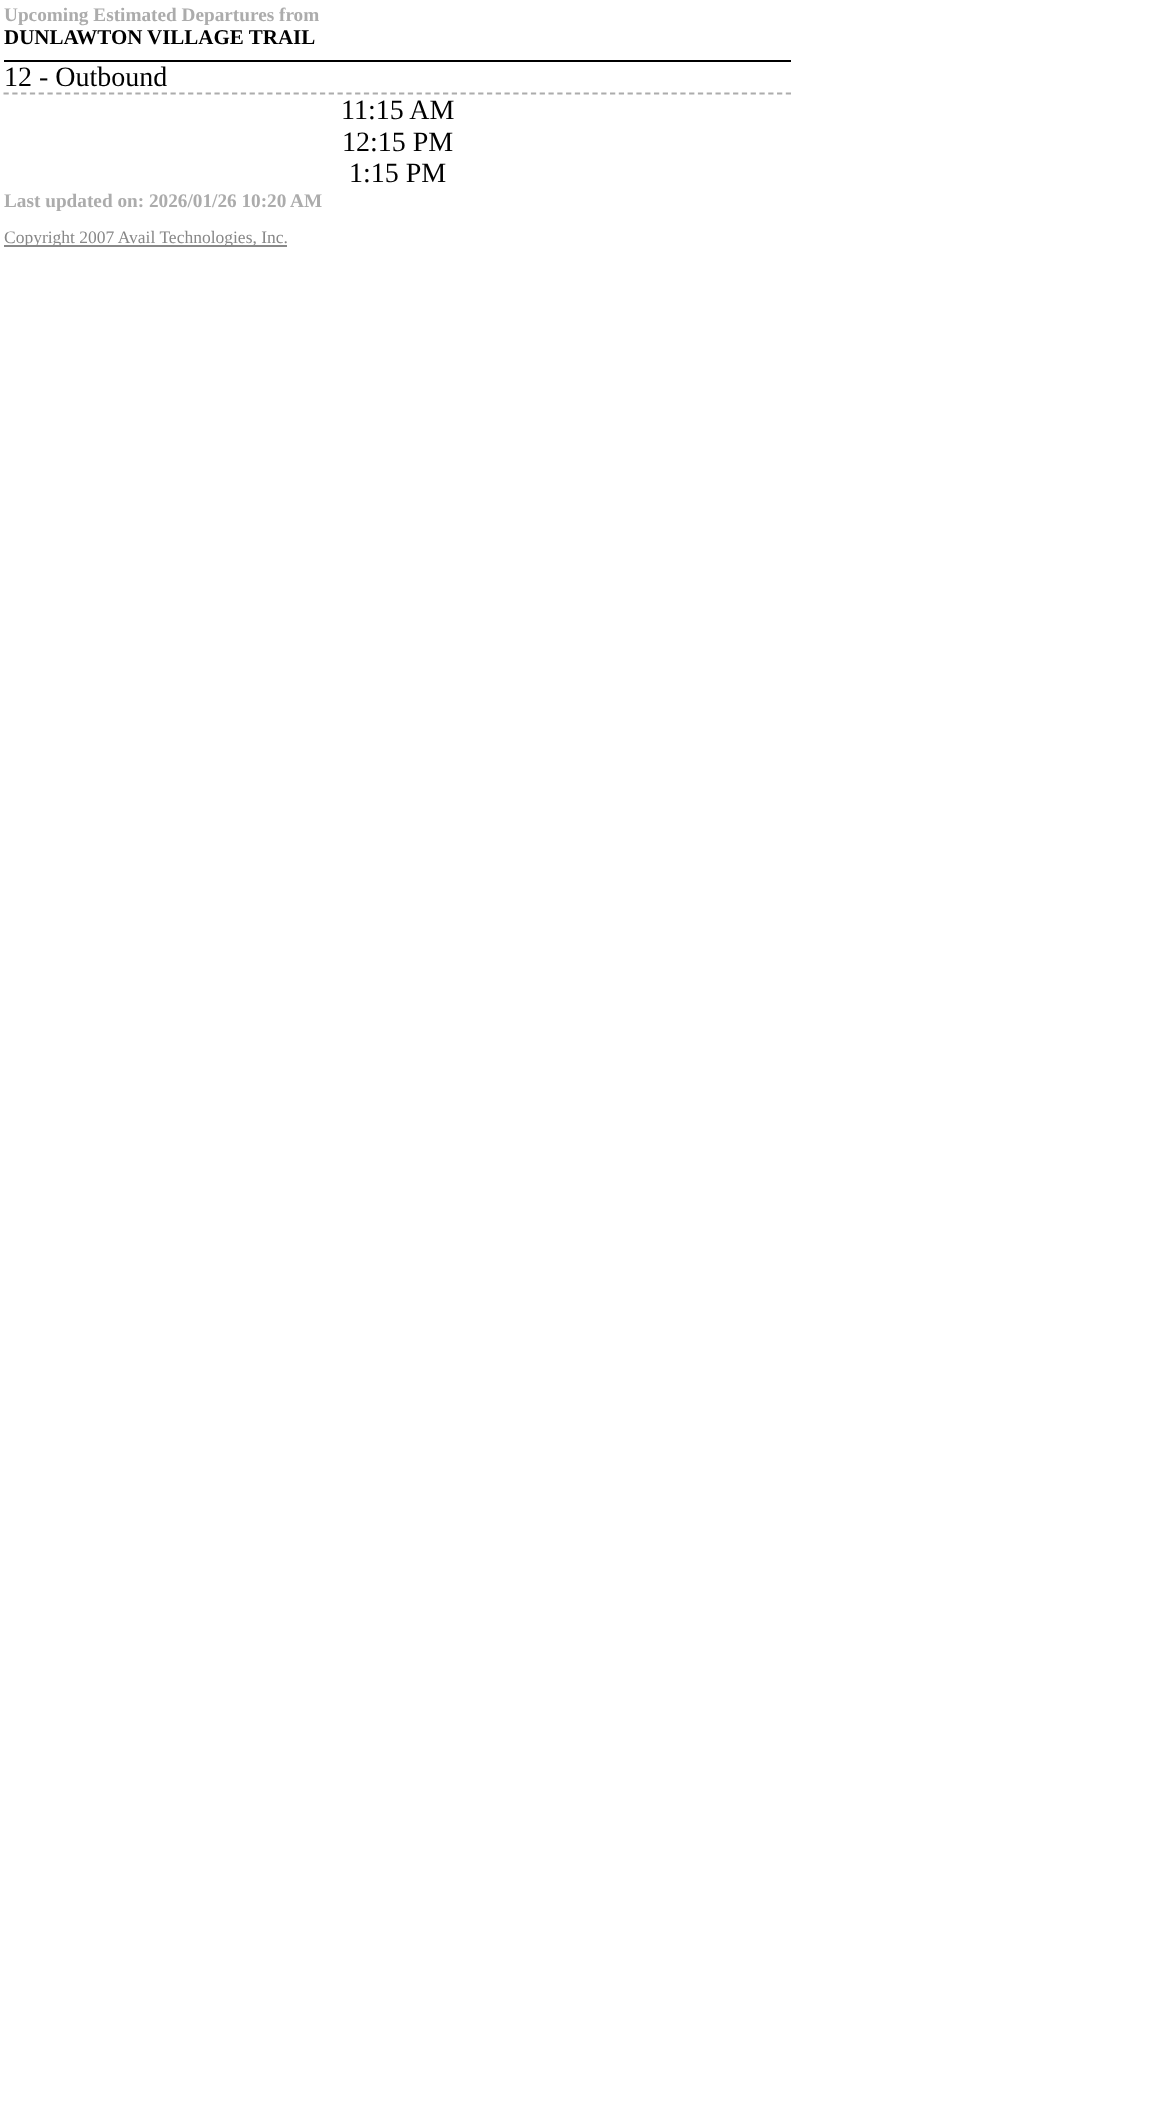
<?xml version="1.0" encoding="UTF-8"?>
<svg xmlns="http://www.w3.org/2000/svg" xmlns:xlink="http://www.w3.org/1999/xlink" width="1151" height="2105">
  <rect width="100%" height="100%" fill="#ffffff" />
  <rect x="4" y="60" width="787" height="2" fill="#000000" />
  <path d="M 3.5 93.5 h 787.5" fill="none" stroke="#acacac" stroke-width="1.8" stroke-dasharray="5.25 3.54" />
  <rect x="4" y="245" width="283" height="2" fill="#888888" />
  <text x="4" y="21" style="font-family: Liberation Serif; font-size: 19.25px; font-weight: bold; fill: #acacac">Upcoming Estimated Departures from</text>
  <text x="4" y="44" style="font-family: Liberation Serif; font-size: 21px; font-weight: bold; fill: #000000">DUNLAWTON</text>
  <text x="147" y="44" style="font-family: Liberation Serif; font-size: 21px; font-weight: bold; fill: #000000">VILLAGE TRAIL</text>
  <text x="4" y="86" style="font-family: Liberation Serif; font-size: 28px; fill: #000000">12 - Outbound</text>
  <text x="341" y="119" style="font-family: Liberation Serif; font-size: 28px; fill: #000000">11:15 AM</text>
  <text x="342" y="151" style="font-family: Liberation Serif; font-size: 28px; fill: #000000">12:15 PM</text>
  <text x="349" y="182" style="font-family: Liberation Serif; font-size: 28px; fill: #000000">1:15 PM</text>
  <text x="4" y="207" style="font-family: Liberation Serif; font-size: 19.25px; font-weight: bold; fill: #acacac">Last updated on: 2026/01/26 10:20 AM</text>
  <text x="4" y="243" style="font-family: Liberation Serif; font-size: 17.5px; fill: #888888">Copyright 2007 Avail Technologies, Inc.</text>
</svg>
